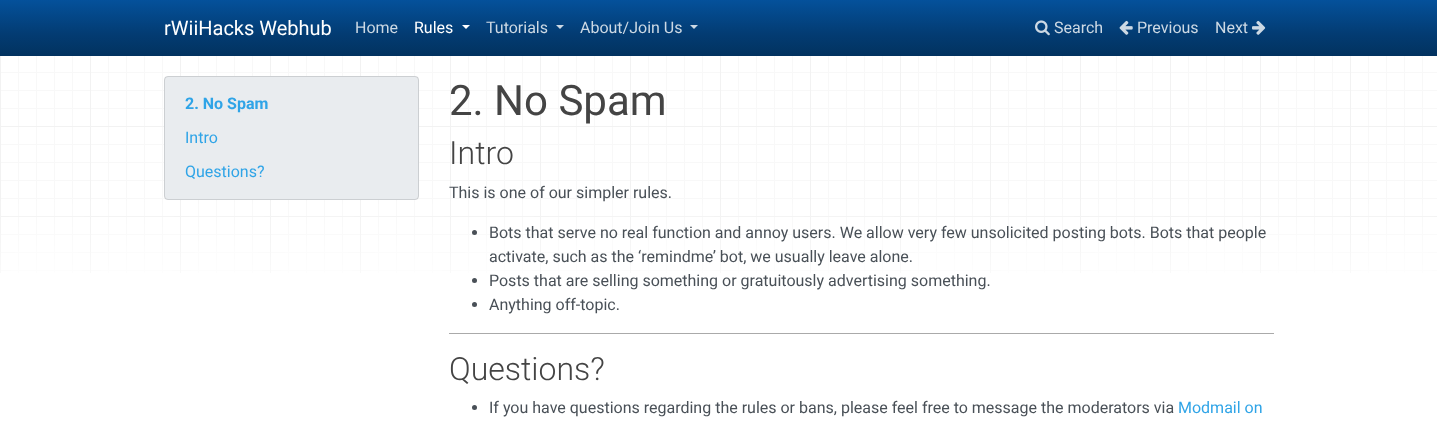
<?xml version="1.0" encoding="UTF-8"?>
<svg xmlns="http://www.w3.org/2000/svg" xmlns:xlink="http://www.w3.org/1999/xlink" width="1437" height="433">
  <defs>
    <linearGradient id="g1" gradientUnits="userSpaceOnUse" x1="719" y1="0" x2="719" y2="56"><stop offset="0" stop-color="#04519b" /><stop offset="0.6" stop-color="#033c73" /><stop offset="1" stop-color="#02325f" /></linearGradient>
  </defs>
  <rect width="100%" height="100%" fill="#ffffff" />
  <rect width="1437" height="56" fill="url(#g1)" />
  <path d="M 462 25 h 8 l -4 4 z" fill="#ffffff" />
  <path d="M 556 25 h 8 l -4 4 z" fill="#ffffff" fill-opacity="0.8" />
  <path d="M 690 25 h 8 l -4 4 z" fill="#ffffff" fill-opacity="0.8" />
  <image x="1035" y="20" width="15" height="16" xlink:href="image1.png" />
  <image x="1119" y="20" width="14" height="15" xlink:href="image2.png" />
  <image x="1252" y="20" width="14" height="15" xlink:href="image3.png" />
  <image x="0" y="56" width="1437" height="217" xlink:href="image4.png" />
  <rect x="164" y="76" width="255" height="124" rx="4" fill="#e9ecef" />
  <rect x="164.5" y="76.5" width="254" height="123" rx="3.5" fill="none" stroke="#000000" stroke-opacity="0.12" />
  <circle cx="474.5" cy="232.5" r="2.5" fill="#495057" />
  <circle cx="474.5" cy="280.5" r="2.5" fill="#495057" />
  <circle cx="474.5" cy="304.5" r="2.5" fill="#495057" />
  <rect x="449" y="333" width="825" height="1" fill="#aaaaaa" />
  <circle cx="474.5" cy="407.5" r="2.5" fill="#495057" />
  <text x="164" y="35" style="font-family: Roboto; font-size: 20px; fill: #ffffff">rWiiHacks Webhub</text>
  <text x="355" y="33" style="font-family: Roboto; font-size: 16px; fill: #cdd9e4">Home</text>
  <text x="414" y="33" style="font-family: Roboto; font-size: 16px; fill: #ffffff">Rules</text>
  <text x="486" y="33" style="font-family: Roboto; font-size: 16px; fill: #cdd9e4">Tutorials</text>
  <text x="580" y="33" style="font-family: Roboto; font-size: 16px; fill: #cdd9e4">About/Join Us</text>
  <text x="1054" y="33" style="font-family: Roboto; font-size: 16px; fill: #cdd9e4">Search</text>
  <text x="1137" y="33" style="font-family: Roboto; font-size: 16px; fill: #cdd9e4">Previous</text>
  <text x="1215" y="33" style="font-family: Roboto; font-size: 16px; fill: #cdd9e4">Next</text>
  <text x="185" y="109" style="font-family: Roboto; font-size: 16px; font-weight: bold; fill: #2fa4e7">2. No Spam</text>
  <text x="185" y="143" style="font-family: Roboto; font-size: 16px; fill: #2fa4e7">Intro</text>
  <text x="185" y="177" style="font-family: Roboto; font-size: 16px; fill: #2fa4e7">Questions?</text>
  <text x="449" y="115" style="font-family: Roboto; font-size: 42px; fill: #444444">2. No Spam</text>
  <text x="449" y="164" style="font-family: Roboto; font-size: 32px; font-weight: 300; fill: #444444">Intro</text>
  <text x="449" y="198" style="font-family: Roboto; font-size: 16px; fill: #495057">This is one of our simpler rules.</text>
  <text x="489" y="238" style="font-family: Roboto; font-size: 16px; fill: #495057">Bots that serve no real function and annoy users. We allow very few unsolicited posting bots. Bots that people</text>
  <text x="489" y="262" style="font-family: Roboto; font-size: 16px; fill: #495057">activate, such as the ‘remindme’ bot, we usually leave alone.</text>
  <text x="489" y="286" style="font-family: Roboto; font-size: 16px; fill: #495057">Posts that are selling something or gratuitously advertising something.</text>
  <text x="489" y="310" style="font-family: Roboto; font-size: 16px; fill: #495057">Anything off-topic.</text>
  <text x="449" y="380" style="font-family: Roboto; font-size: 32px; font-weight: 300; fill: #444444">Questions?</text>
  <text x="489" y="413" style="font-family: Roboto; font-size: 16px; fill: #495057">If you have questions regarding the rules or bans, please feel free to message the moderators via</text>
  <text x="1178" y="413" style="font-family: Roboto; font-size: 16px; fill: #2fa4e7">Modmail on</text>
</svg>
